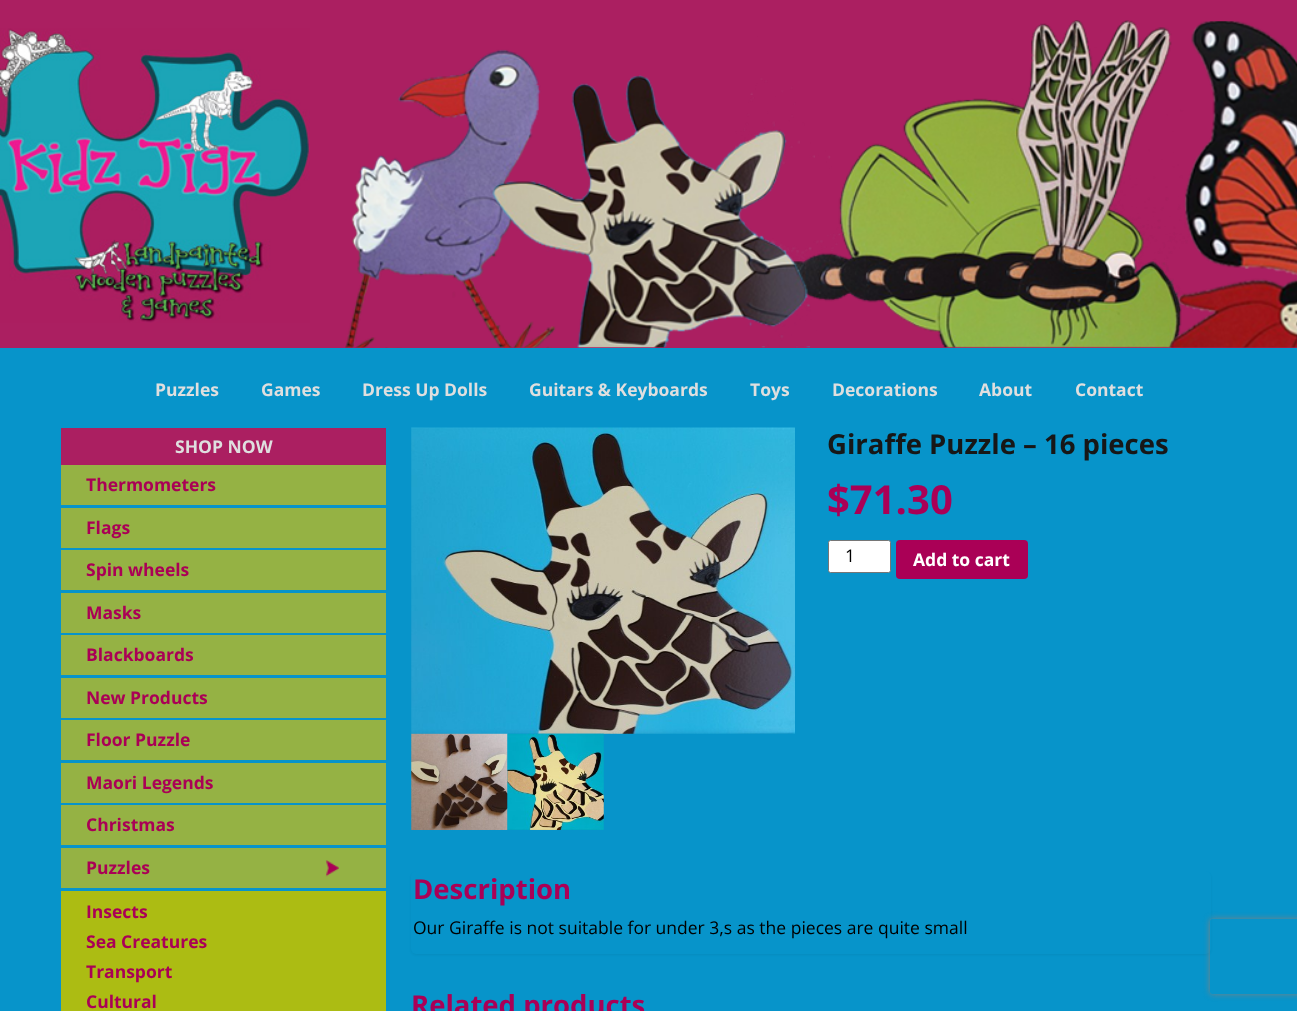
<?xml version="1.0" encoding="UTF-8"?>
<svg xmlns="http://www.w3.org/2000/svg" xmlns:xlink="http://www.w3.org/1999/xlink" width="1297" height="1011">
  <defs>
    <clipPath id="clip1"><path d="M 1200 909 h 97 v 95 h -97 z m 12.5 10 h 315 c 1.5 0 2.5 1 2.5 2.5 v 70 c 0 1.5 -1 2.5 -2.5 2.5 h -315 c -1.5 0 -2.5 -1 -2.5 -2.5 v -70 c 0 -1.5 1 -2.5 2.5 -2.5 z" clip-rule="evenodd" /></clipPath>
  </defs>
  <rect width="100%" height="100%" fill="#0794ca" />
  <rect width="1297" height="348" fill="#ab1f61" />
  <image x="0" y="28" width="310" height="295" xlink:href="image1.png" />
  <image x="345" y="20" width="952" height="328" xlink:href="image2.png" />
  <rect x="61" y="428" width="325" height="37" fill="#ab1f61" />
  <rect x="61" y="465" width="325" height="40" fill="#95b244" />
  <rect x="61" y="508" width="325" height="40" fill="#95b244" />
  <rect x="61" y="550" width="325" height="40" fill="#95b244" />
  <rect x="61" y="593" width="325" height="40" fill="#95b244" />
  <rect x="61" y="635" width="325" height="40" fill="#95b244" />
  <rect x="61" y="678" width="325" height="40" fill="#95b244" />
  <rect x="61" y="720" width="325" height="40" fill="#95b244" />
  <rect x="61" y="763" width="325" height="40" fill="#95b244" />
  <rect x="61" y="805" width="325" height="40" fill="#95b244" />
  <rect x="61" y="848" width="325" height="40" fill="#95b244" />
  <image x="325" y="860" width="14" height="17" xlink:href="image3.png" />
  <rect x="61" y="891" width="325" height="120" fill="#acbc13" />
  <image x="411" y="427" width="384" height="307" xlink:href="image4.png" />
  <image x="411" y="733" width="97" height="97" xlink:href="image5.png" />
  <image x="507" y="733" width="97" height="97" xlink:href="image6.png" />
  <rect x="828.5" y="540.5" width="62" height="32" rx="2" fill="#ffffff" stroke="#767676" />
  <rect x="896" y="540" width="132" height="39" rx="4" fill="#aa0056" />
  <rect x="411" y="873" width="800" height="82" rx="5" fill="#000000" fill-opacity="0.05" filter="blur(1px)" />
  <rect x="411" y="871" width="800" height="83" rx="5" fill="#0794ca" />
  <g clip-path="url(#clip1)">
    <rect x="1210" y="919" width="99" height="75" rx="2.5" fill="#808080" filter="blur(3px)" />
  </g>
  <text x="155" y="396" style="font-family: Open Sans; font-size: 17.5px; font-weight: bold; fill: #dfdfdf">Puzzles</text>
  <text x="261" y="396" style="font-family: Open Sans; font-size: 17.5px; font-weight: bold; fill: #dfdfdf">Games</text>
  <text x="362" y="396" style="font-family: Open Sans; font-size: 17.5px; font-weight: bold; fill: #dfdfdf">Dress Up Dolls</text>
  <text x="529" y="396" style="font-family: Open Sans; font-size: 17.5px; font-weight: bold; fill: #dfdfdf">Guitars &amp; Keyboards</text>
  <text x="750" y="396" style="font-family: Open Sans; font-size: 17.5px; font-weight: bold; fill: #dfdfdf">Toys</text>
  <text x="832" y="396" style="font-family: Open Sans; font-size: 17.5px; font-weight: bold; fill: #dfdfdf">Decorations</text>
  <text x="979" y="396" style="font-family: Open Sans; font-size: 17.5px; font-weight: bold; fill: #dfdfdf">About</text>
  <text x="1075" y="396" style="font-family: Open Sans; font-size: 17.5px; font-weight: bold; fill: #dfdfdf">Contact</text>
  <text x="175" y="453" style="font-family: Open Sans; font-size: 17.5px; font-weight: bold; fill: #dfdfdf">SHOP NOW</text>
  <text x="86" y="491" style="font-family: Open Sans; font-size: 17.5px; font-weight: bold; fill: #aa0056">Thermometers</text>
  <text x="86" y="534" style="font-family: Open Sans; font-size: 17.5px; font-weight: bold; fill: #aa0056">Flags</text>
  <text x="86" y="576" style="font-family: Open Sans; font-size: 17.5px; font-weight: bold; fill: #aa0056">Spin wheels</text>
  <text x="86" y="619" style="font-family: Open Sans; font-size: 17.5px; font-weight: bold; fill: #aa0056">Masks</text>
  <text x="86" y="661" style="font-family: Open Sans; font-size: 17.5px; font-weight: bold; fill: #aa0056">Blackboards</text>
  <text x="86" y="704" style="font-family: Open Sans; font-size: 17.5px; font-weight: bold; fill: #aa0056">New Products</text>
  <text x="86" y="746" style="font-family: Open Sans; font-size: 17.5px; font-weight: bold; fill: #aa0056">Floor Puzzle</text>
  <text x="86" y="789" style="font-family: Open Sans; font-size: 17.5px; font-weight: bold; fill: #aa0056">Maori Legends</text>
  <text x="86" y="831" style="font-family: Open Sans; font-size: 17.5px; font-weight: bold; fill: #aa0056">Christmas</text>
  <text x="86" y="874" style="font-family: Open Sans; font-size: 17.5px; font-weight: bold; fill: #aa0056">Puzzles</text>
  <text x="86" y="918" style="font-family: Open Sans; font-size: 17.5px; font-weight: bold; fill: #aa0056">Insects</text>
  <text x="86" y="948" style="font-family: Open Sans; font-size: 17.5px; font-weight: bold; fill: #aa0056">Sea Creatures</text>
  <text x="86" y="978" style="font-family: Open Sans; font-size: 17.5px; font-weight: bold; fill: #aa0056">Transport</text>
  <text x="86" y="1008" style="font-family: Open Sans; font-size: 17.5px; font-weight: bold; fill: #aa0056">Cultural</text>
  <text x="827" y="454" style="font-family: Open Sans; font-size: 27.5px; font-weight: bold; fill: #171717">Giraffe Puzzle – 16 pieces</text>
  <text x="827" y="514" style="font-family: Open Sans; font-size: 40px; font-weight: bold; fill: #aa0056">$71.30</text>
  <text x="845" y="562" style="font-family: Open Sans; font-size: 17.5px; fill: #000000">1</text>
  <text x="913" y="566" style="font-family: Open Sans; font-size: 17.5px; font-weight: bold; fill: #ffffff">Add to cart</text>
  <text x="413" y="899" style="font-family: Open Sans; font-size: 27.5px; font-weight: bold; fill: #aa0056">Description</text>
  <text x="413" y="934" style="font-family: Open Sans; font-size: 17.5px; fill: #000000">Our Giraffe is not suitable for under 3,s as the pieces are quite small</text>
  <text x="411" y="1015" style="font-family: Open Sans; font-size: 27.5px; font-weight: bold; fill: #aa0056">Related products</text>
</svg>
